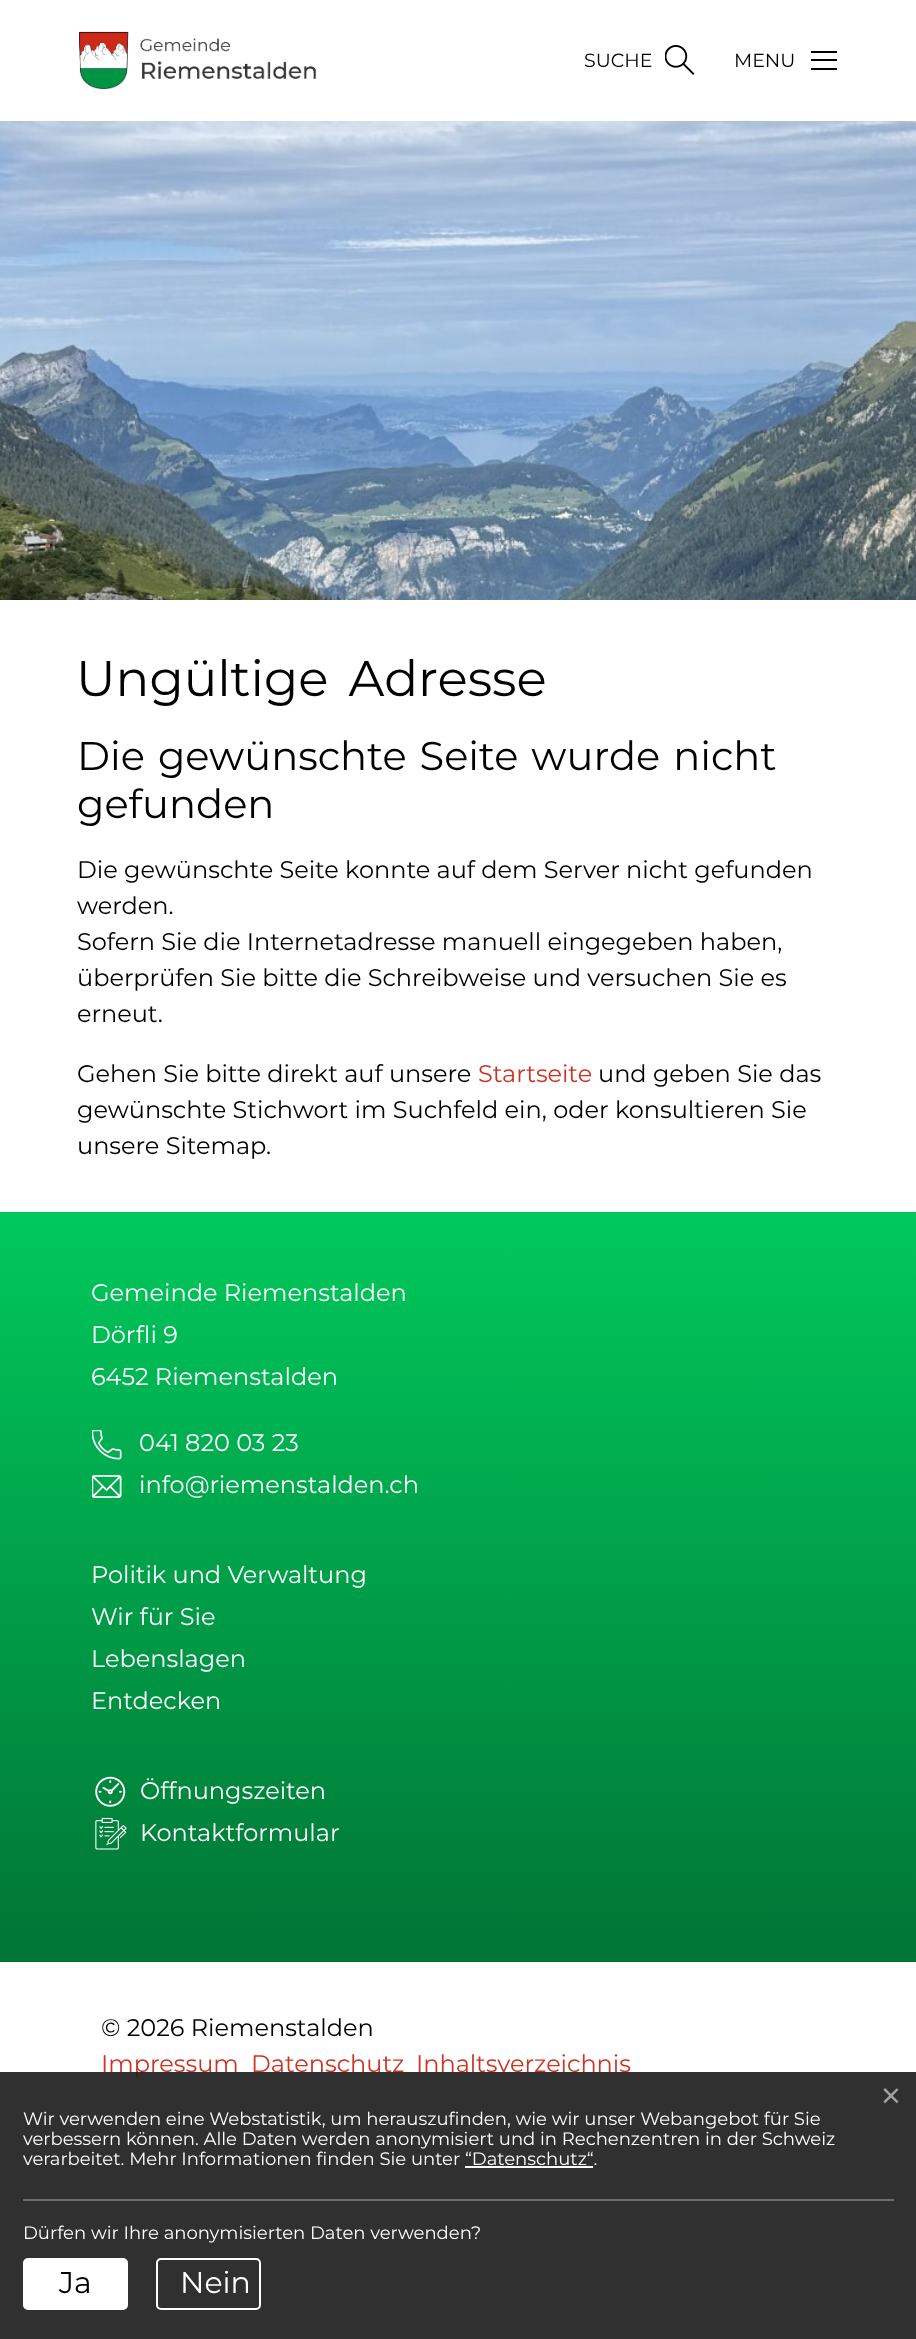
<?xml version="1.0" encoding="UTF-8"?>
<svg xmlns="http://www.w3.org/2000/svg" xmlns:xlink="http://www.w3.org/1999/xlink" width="916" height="2339">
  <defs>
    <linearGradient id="g1" gradientUnits="userSpaceOnUse" x1="458" y1="1962" x2="458" y2="1212"><stop offset="0" stop-color="#007435" /><stop offset="1" stop-color="#00c95c" /></linearGradient>
  </defs>
  <rect width="100%" height="100%" fill="#ffffff" />
  <image x="79" y="31" width="238" height="59" xlink:href="image1.png" />
  <image x="665" y="45" width="30" height="30" xlink:href="image2.png" />
  <rect x="811" y="51" width="26" height="2" fill="#000000" />
  <rect x="811" y="59" width="26" height="2" fill="#000000" />
  <rect x="811" y="68" width="26" height="2" fill="#000000" />
  <image x="0" y="121" width="916" height="479" xlink:href="image3.png" />
  <rect y="1212" width="916" height="750" fill="url(#g1)" />
  <image x="92" y="1430" width="30" height="30" xlink:href="image4.png" />
  <image x="92" y="1475" width="30" height="23" xlink:href="image5.png" />
  <image x="95" y="1776" width="31" height="31" xlink:href="image6.png" />
  <image x="95" y="1817" width="32" height="33" xlink:href="image7.png" />
  <text x="584" y="67" style="font-family: Montserrat; font-size: 19px; fill: #000000">SUCHE</text>
  <text x="734" y="67" style="font-family: Montserrat; font-size: 19px; fill: #000000">MENU</text>
  <text x="76" y="696" word-spacing="7" style="font-family: Montserrat; font-size: 50px; fill: #000000">Ungültige Adresse</text>
  <text x="77" y="770" word-spacing="2.5" style="font-family: Montserrat; font-size: 40px; fill: #000000">Die gewünschte Seite wurde nicht</text>
  <text x="77" y="818" style="font-family: Montserrat; font-size: 40px; fill: #000000">gefunden</text>
  <text x="77" y="878" style="font-family: Montserrat; font-size: 24px; fill: #000000">Die gewünschte Seite konnte auf dem Server nicht gefunden</text>
  <text x="77" y="914" style="font-family: Montserrat; font-size: 24px; fill: #000000">werden.</text>
  <text x="77" y="950" style="font-family: Montserrat; font-size: 24px; fill: #000000">Sofern Sie die Internetadresse manuell eingegeben haben,</text>
  <text x="77" y="986" style="font-family: Montserrat; font-size: 24px; fill: #000000">überprüfen Sie bitte die Schreibweise und versuchen Sie es</text>
  <text x="77" y="1022" style="font-family: Montserrat; font-size: 24px; fill: #000000">erneut.</text>
  <text x="77" y="1082" style="font-family: Montserrat; font-size: 24px; fill: #000000">Gehen Sie bitte direkt auf unsere</text>
  <text x="478" y="1082" style="font-family: Montserrat; font-size: 24px; fill: #cc3322">Startseite</text>
  <text x="598" y="1082" style="font-family: Montserrat; font-size: 24px; fill: #000000">und geben Sie das</text>
  <text x="77" y="1118" style="font-family: Montserrat; font-size: 24px; fill: #000000">gewünschte Stichwort im Suchfeld ein, oder konsultieren Sie</text>
  <text x="77" y="1154" style="font-family: Montserrat; font-size: 24px; fill: #000000">unsere Sitemap.</text>
  <text x="91" y="1301" style="font-family: Montserrat; font-size: 24px; fill: #ffffff">Gemeinde Riemenstalden</text>
  <text x="91" y="1343" style="font-family: Montserrat; font-size: 24px; fill: #ffffff">Dörfli 9</text>
  <text x="91" y="1385" style="font-family: Montserrat; font-size: 24px; fill: #ffffff">6452 Riemenstalden</text>
  <text x="139" y="1451" style="font-family: Montserrat; font-size: 24px; fill: #ffffff">041 820 03 23</text>
  <text x="139" y="1493" style="font-family: Montserrat; font-size: 24px; fill: #ffffff">info@riemenstalden.ch</text>
  <text x="91" y="1583" style="font-family: Montserrat; font-size: 24px; fill: #ffffff">Politik und Verwaltung</text>
  <text x="91" y="1625" style="font-family: Montserrat; font-size: 24px; fill: #ffffff">Wir für Sie</text>
  <text x="91" y="1667" style="font-family: Montserrat; font-size: 24px; fill: #ffffff">Lebenslagen</text>
  <text x="91" y="1709" style="font-family: Montserrat; font-size: 24px; fill: #ffffff">Entdecken</text>
  <text x="140" y="1799" style="font-family: Montserrat; font-size: 24px; fill: #ffffff">Öffnungszeiten</text>
  <text x="140" y="1841" style="font-family: Montserrat; font-size: 24px; fill: #ffffff">Kontaktformular</text>
  <text x="101" y="2036" style="font-family: Montserrat; font-size: 24px; fill: #000000">© 2026 Riemenstalden</text>
  <text x="101" y="2072" style="font-family: Montserrat; font-size: 24px; fill: #cc3322">Impressum</text>
  <text x="251" y="2072" style="font-family: Montserrat; font-size: 24px; fill: #cc3322">Datenschutz</text>
  <text x="416" y="2072" style="font-family: Montserrat; font-size: 24px; fill: #cc3322">Inhaltsverzeichnis</text>
  <rect y="2072" width="916" height="267" fill="#191919" fill-opacity="0.9" />
  <text x="881" y="2107" style="font-family: Liberation Sans; font-size: 34px; fill: #a2a2a2">×</text>
  <rect x="23" y="2199" width="871" height="2" fill="#6d6d6d" />
  <text x="23" y="2125" style="font-family: Montserrat; font-size: 18px; fill: #ffffff">Wir verwenden eine Webstatistik, um herauszufinden, wie wir unser Webangebot für Sie</text>
  <text x="23" y="2145" style="font-family: Montserrat; font-size: 18px; fill: #ffffff">verbessern können. Alle Daten werden anonymisiert und in Rechenzentren in der Schweiz</text>
  <text x="23" y="2165" style="font-family: Montserrat; font-size: 18px; fill: #ffffff">verarbeitet. Mehr Informationen finden Sie unter “Datenschutz“.</text>
  <rect x="465" y="2166" width="128" height="2" fill="#ffffff" />
  <text x="23" y="2239" style="font-family: Montserrat; font-size: 18px; fill: #ffffff">Dürfen wir Ihre anonymisierten Daten verwenden?</text>
  <rect x="24" y="2259" width="103" height="50" rx="4" fill="#ffffff" stroke="#ffffff" stroke-width="2" />
  <text x="59" y="2293" style="font-family: Montserrat; font-size: 30px; fill: #000000">Ja</text>
  <rect x="157" y="2259" width="103" height="50" rx="4" fill="none" stroke="#ffffff" stroke-width="2" />
  <text x="180" y="2293" style="font-family: Montserrat; font-size: 30px; fill: #ffffff">Nein</text>
</svg>
